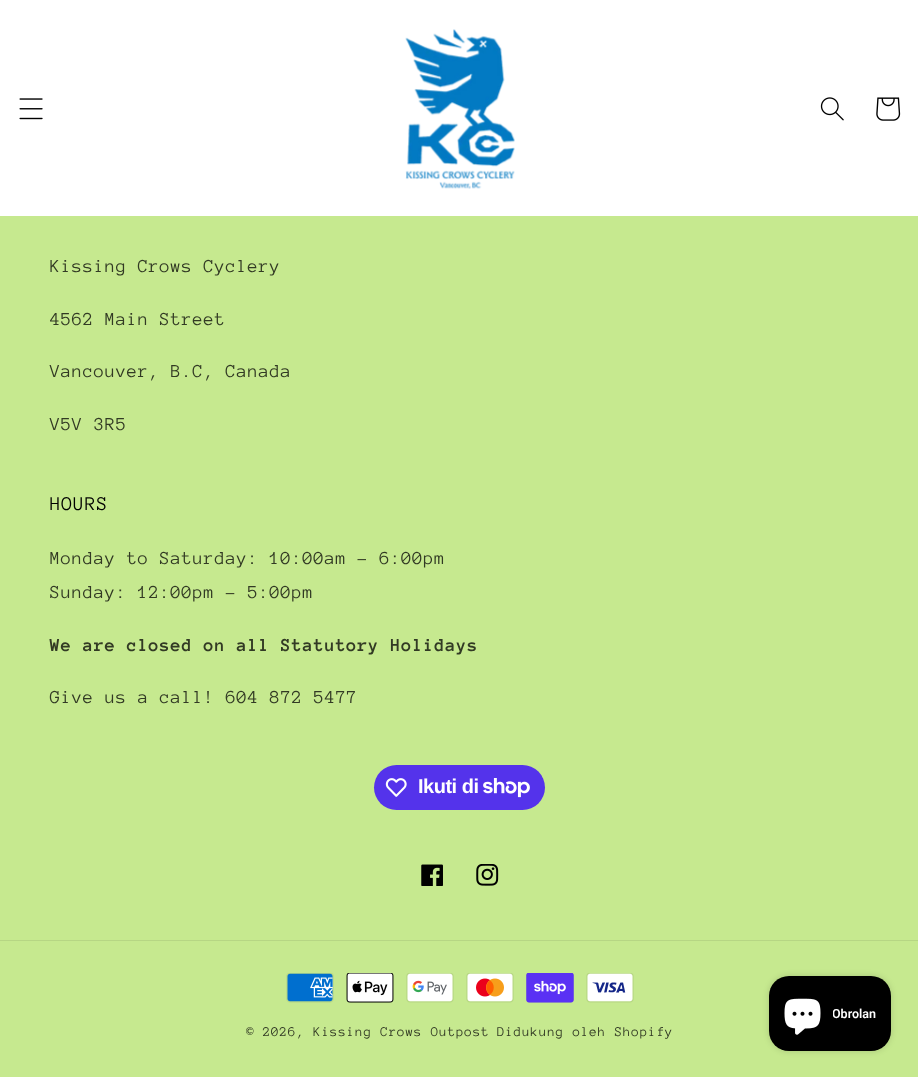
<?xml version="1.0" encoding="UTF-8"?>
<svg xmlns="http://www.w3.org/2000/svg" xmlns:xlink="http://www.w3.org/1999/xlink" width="918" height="1077">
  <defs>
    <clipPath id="clip1"><rect x="833" y="995" width="43" height="38" /></clipPath>
  </defs>
  <rect width="100%" height="100%" fill="#c6e98f" />
  <rect width="918" height="216" fill="#ffffff" />
  <image x="19" y="98" width="24" height="22" xlink:href="image1.png" />
  <image x="405" y="29" width="110" height="160" xlink:href="image2.png" />
  <image x="820" y="97" width="24" height="24" xlink:href="image3.png" />
  <image x="876" y="97" width="25" height="24" xlink:href="image4.png" />
  <rect x="374" y="765" width="171" height="45" rx="22.5" fill="#5433eb" />
  <image x="385" y="778" width="22" height="19" xlink:href="image5.png" />
  <image x="483" y="778" width="47" height="20" xlink:href="image6.png" />
  <image x="421" y="864" width="22" height="22" xlink:href="image7.png" />
  <image x="476" y="864" width="23" height="22" xlink:href="image8.png" />
  <rect y="940" width="918" height="1" fill="#b6d684" />
  <image x="286" y="973" width="48" height="30" xlink:href="image9.png" />
  <image x="346" y="973" width="48" height="30" xlink:href="image10.png" />
  <image x="406" y="973" width="48" height="30" xlink:href="image11.png" />
  <image x="466" y="973" width="48" height="30" xlink:href="image12.png" />
  <image x="526" y="973" width="48" height="30" xlink:href="image13.png" />
  <image x="586" y="973" width="48" height="30" xlink:href="image14.png" />
  <rect x="769" y="976" width="122" height="75" rx="20" fill="#000000" fill-opacity="0.15" filter="blur(3px)" />
  <rect x="769" y="976" width="122" height="75" rx="20" fill="#000000" />
  <image x="784" y="998" width="37" height="37" xlink:href="image15.png" />
  <text x="50" y="272" style="font-family: Anonymous Pro; font-size: 18.75px; letter-spacing: 0.75px; fill: #323a24">Kissing Crows Cyclery</text>
  <text x="50" y="325" style="font-family: Anonymous Pro; font-size: 18.75px; letter-spacing: 0.75px; fill: #323a24">4562 Main Street</text>
  <text x="50" y="377" style="font-family: Anonymous Pro; font-size: 18.75px; letter-spacing: 0.75px; fill: #323a24">Vancouver, B.C, Canada</text>
  <text x="50" y="430" style="font-family: Anonymous Pro; font-size: 18.75px; letter-spacing: 0.75px; fill: #323a24">V5V 3R5</text>
  <text x="50" y="510" style="font-family: Anonymous Pro; font-size: 20px; letter-spacing: 0.75px; fill: #000000">HOURS</text>
  <text x="50" y="564" style="font-family: Anonymous Pro; font-size: 18.75px; letter-spacing: 0.75px; fill: #323a24">Monday to Saturday: 10:00am - 6:00pm</text>
  <text x="50" y="598" style="font-family: Anonymous Pro; font-size: 18.75px; letter-spacing: 0.75px; fill: #323a24">Sunday: 12:00pm - 5:00pm</text>
  <text x="50" y="651" style="font-family: Anonymous Pro; font-size: 18.75px; font-weight: bold; letter-spacing: 0.75px; fill: #323a24">We are closed on all Statutory Holidays</text>
  <text x="50" y="703" style="font-family: Anonymous Pro; font-size: 18.75px; letter-spacing: 0.75px; fill: #323a24">Give us a call! 604 872 5477</text>
  <text x="418" y="793" style="font-family: Liberation Sans; font-size: 20px; font-weight: bold; letter-spacing: -0.5px; fill: #ffffff">Ikuti di</text>
  <text x="246" y="1036" style="font-family: Anonymous Pro; font-size: 13.75px; letter-spacing: 0.9px; fill: #323a24">© 2026, Kissing Crows Outpost</text>
  <text x="497" y="1036" style="font-family: Anonymous Pro; font-size: 13.75px; letter-spacing: 0.9px; fill: #323a24">Didukung oleh Shopify</text>
  <g clip-path="url(#clip1)">
    <text x="832" y="1018" style="font-family: Roboto; font-size: 12.5px; font-weight: 600; fill: #ffffff">Obrolan</text>
  </g>
</svg>
